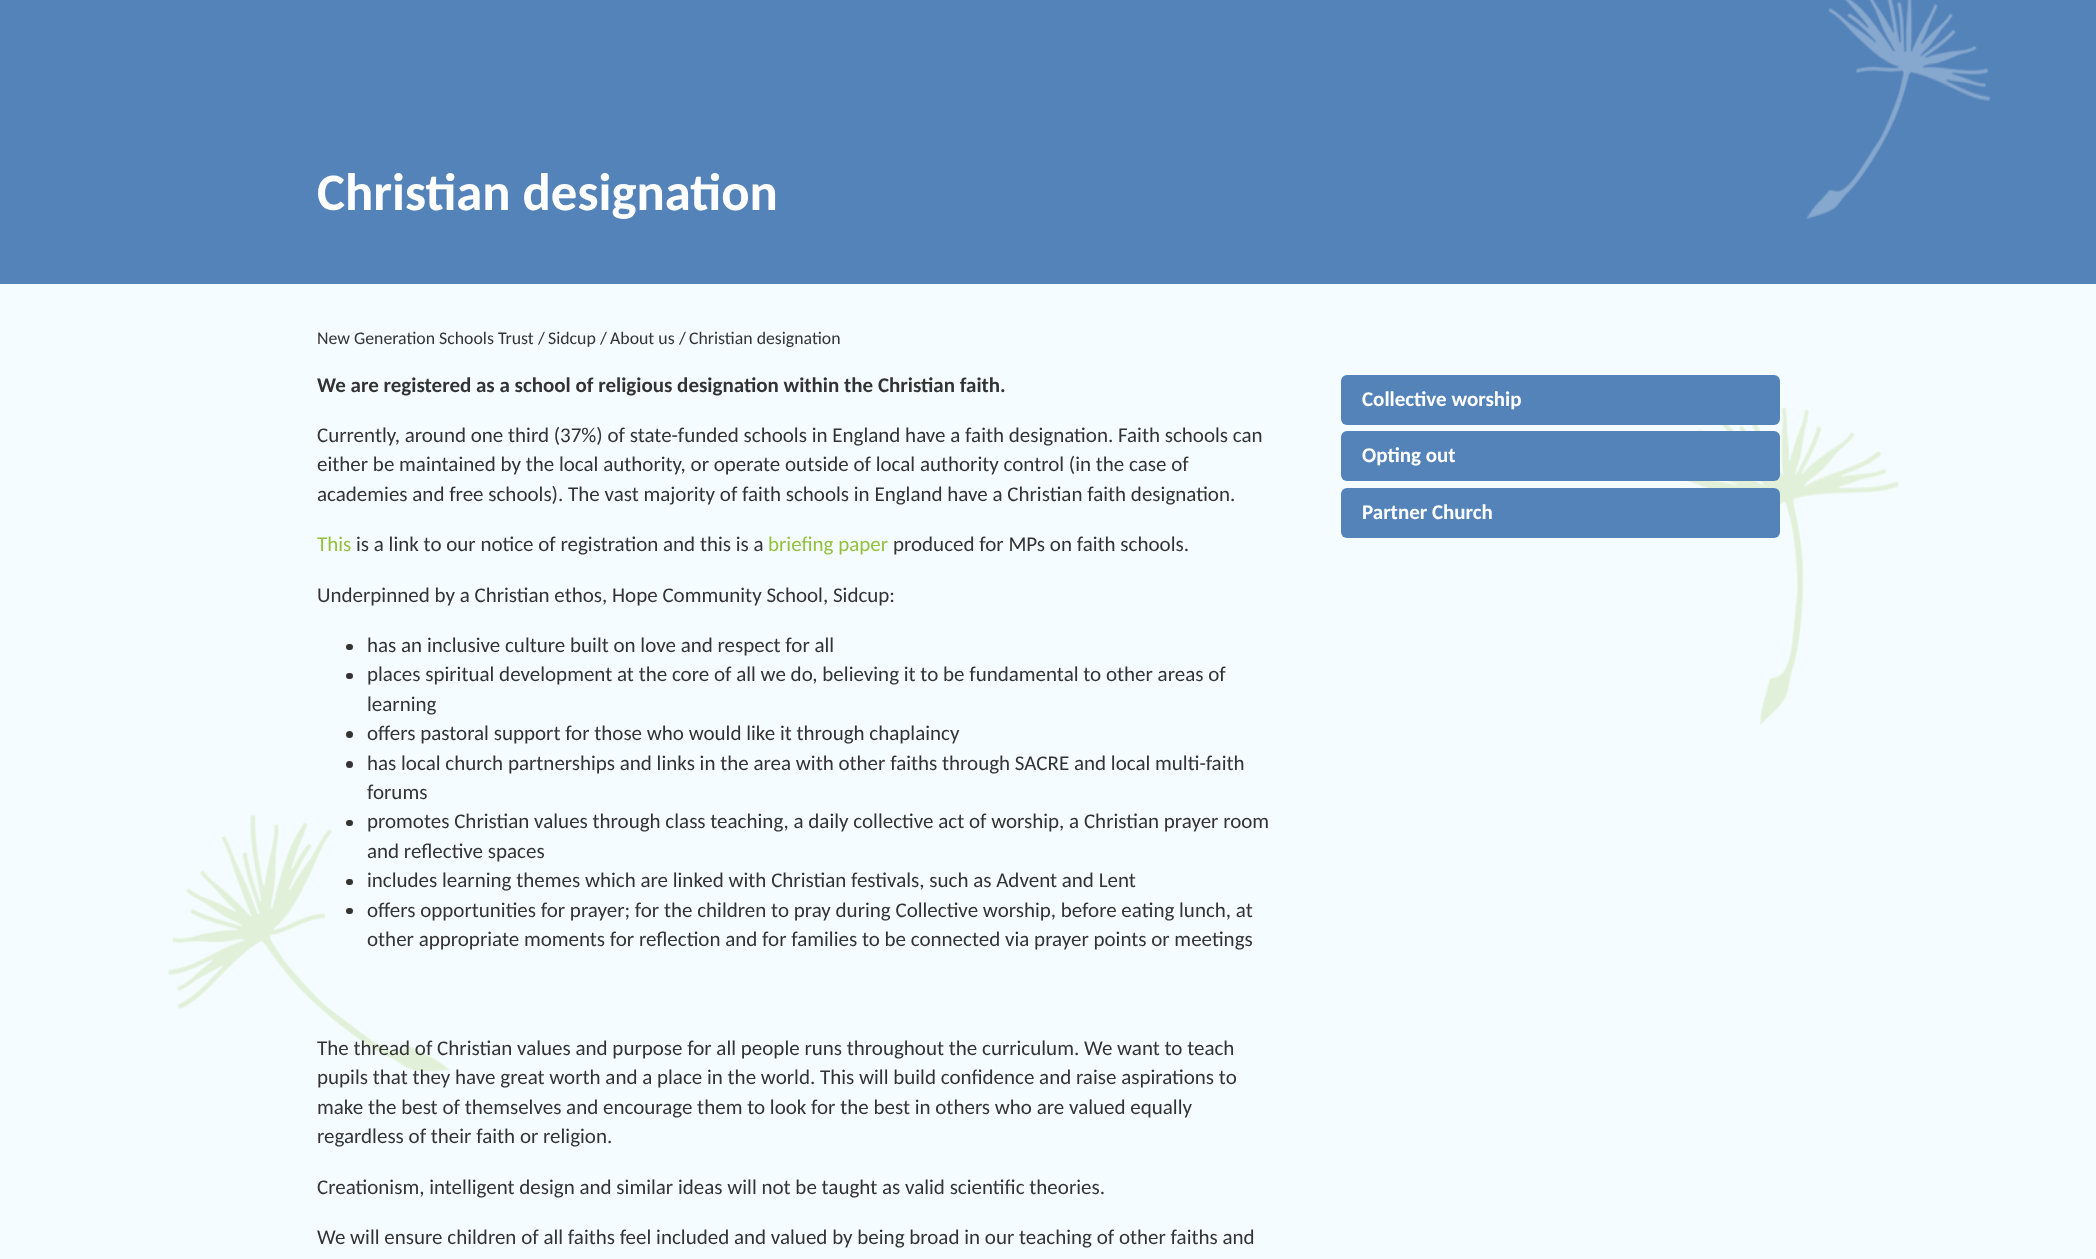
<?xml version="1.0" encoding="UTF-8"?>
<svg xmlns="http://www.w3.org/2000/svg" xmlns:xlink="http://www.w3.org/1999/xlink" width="2096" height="1259">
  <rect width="100%" height="100%" fill="#5483b9" />
  <image x="1806" y="0" width="185" height="220" xlink:href="image1.png" />
  <rect y="284" width="2096" height="975" fill="#f5fcff" />
  <rect x="346" y="644" width="7" height="6" rx="3" fill="#333333" />
  <rect x="346" y="673" width="7" height="6" rx="3" fill="#333333" />
  <circle cx="349.5" cy="734.5" r="3.5" fill="#333333" />
  <circle cx="349.5" cy="764.5" r="3.5" fill="#333333" />
  <image x="167" y="814" width="283" height="258" xlink:href="image3.png" />
  <rect x="346" y="820" width="7" height="6" rx="3" fill="#333333" />
  <rect x="346" y="879" width="7" height="6" rx="3" fill="#333333" />
  <rect x="346" y="908" width="7" height="6" rx="3" fill="#333333" />
  <image x="1686" y="407" width="213" height="318" xlink:href="image2.png" />
  <rect x="1341" y="375" width="439" height="50" rx="6" fill="#5483b9" />
  <rect x="1341" y="431" width="439" height="50" rx="6" fill="#5483b9" />
  <rect x="1341" y="488" width="439" height="50" rx="6" fill="#5483b9" />
  <text x="317" y="210" style="font-family: Carlito; font-size: 52.75px; font-weight: bold; fill: #ffffff">Christian designation</text>
  <text x="317" y="344" style="font-family: Carlito; font-size: 17.8px; fill: #333333">New Generation Schools Trust</text>
  <text x="538" y="344" style="font-family: Carlito; font-size: 17.8px; fill: #333333">/</text>
  <text x="548" y="344" style="font-family: Carlito; font-size: 17.8px; fill: #333333">Sidcup</text>
  <text x="600" y="344" style="font-family: Carlito; font-size: 17.8px; fill: #333333">/</text>
  <text x="610" y="344" style="font-family: Carlito; font-size: 17.8px; fill: #333333">About us</text>
  <text x="679" y="344" style="font-family: Carlito; font-size: 17.8px; fill: #333333">/</text>
  <text x="689" y="344" style="font-family: Carlito; font-size: 17.8px; fill: #333333">Christian designation</text>
  <text x="317" y="392" style="font-family: Carlito; font-size: 21px; font-weight: bold; fill: #333333">We are registered as a school of religious designation within the Christian faith.</text>
  <text x="317" y="442" style="font-family: Carlito; font-size: 21px; fill: #333333">Currently, around one third (37%) of state-funded schools in England have a faith designation. Faith schools can</text>
  <text x="317" y="471" style="font-family: Carlito; font-size: 21px; fill: #333333">either be maintained by the local authority, or operate outside of local authority control (in the case of</text>
  <text x="317" y="501" style="font-family: Carlito; font-size: 21px; fill: #333333">academies and free schools). The vast majority of faith schools in England have a Christian faith designation.</text>
  <text x="317" y="551" style="font-family: Carlito; font-size: 21px; fill: #93c13e">This</text>
  <text x="356" y="551" style="font-family: Carlito; font-size: 21px; fill: #333333">is a link to our notice of registration and this is a</text>
  <text x="768" y="551" style="font-family: Carlito; font-size: 21px; fill: #93c13e">briefing paper</text>
  <text x="893" y="551" style="font-family: Carlito; font-size: 21px; fill: #333333">produced for MPs on faith schools.</text>
  <text x="317" y="602" style="font-family: Carlito; font-size: 21px; fill: #333333">Underpinned by a Christian ethos, Hope Community School, Sidcup:</text>
  <text x="367" y="652" style="font-family: Carlito; font-size: 21px; fill: #333333">has an inclusive culture built on love and respect for all</text>
  <text x="367" y="681" style="font-family: Carlito; font-size: 21px; fill: #333333">places spiritual development at the core of all we do, believing it to be fundamental to other areas of</text>
  <text x="367" y="711" style="font-family: Carlito; font-size: 21px; fill: #333333">learning</text>
  <text x="367" y="740" style="font-family: Carlito; font-size: 21px; fill: #333333">offers pastoral support for those who would like it through chaplaincy</text>
  <text x="367" y="770" style="font-family: Carlito; font-size: 21px; fill: #333333">has local church partnerships and links in the area with other faiths through SACRE and local multi-faith</text>
  <text x="367" y="799" style="font-family: Carlito; font-size: 21px; fill: #333333">forums</text>
  <text x="367" y="828" style="font-family: Carlito; font-size: 21px; fill: #333333">promotes Christian values through class teaching, a daily collective act of worship, a Christian prayer room</text>
  <text x="367" y="858" style="font-family: Carlito; font-size: 21px; fill: #333333">and reflective spaces</text>
  <text x="367" y="887" style="font-family: Carlito; font-size: 21px; fill: #333333">includes learning themes which are linked with Christian festivals, such as Advent and Lent</text>
  <text x="367" y="917" style="font-family: Carlito; font-size: 21px; fill: #333333">offers opportunities for prayer; for the children to pray during Collective worship, before eating lunch, at</text>
  <text x="367" y="946" style="font-family: Carlito; font-size: 21px; fill: #333333">other appropriate moments for reflection and for families to be connected via prayer points or meetings</text>
  <text x="317" y="1055" style="font-family: Carlito; font-size: 21px; fill: #333333">The thread of Christian values and purpose for all people runs throughout the curriculum. We want to teach</text>
  <text x="317" y="1084" style="font-family: Carlito; font-size: 21px; fill: #333333">pupils that they have great worth and a place in the world. This will build confidence and raise aspirations to</text>
  <text x="317" y="1114" style="font-family: Carlito; font-size: 21px; fill: #333333">make the best of themselves and encourage them to look for the best in others who are valued equally</text>
  <text x="317" y="1143" style="font-family: Carlito; font-size: 21px; fill: #333333">regardless of their faith or religion.</text>
  <text x="317" y="1194" style="font-family: Carlito; font-size: 21px; fill: #333333">Creationism, intelligent design and similar ideas will not be taught as valid scientific theories.</text>
  <text x="317" y="1244" style="font-family: Carlito; font-size: 21px; fill: #333333">We will ensure children of all faiths feel included and valued by being broad in our teaching of other faiths and</text>
  <text x="1362" y="406" style="font-family: Carlito; font-size: 21px; font-weight: bold; fill: #ffffff">Collective worship</text>
  <text x="1362" y="462" style="font-family: Carlito; font-size: 21px; font-weight: bold; fill: #ffffff">Opting out</text>
  <text x="1362" y="519" style="font-family: Carlito; font-size: 21px; font-weight: bold; fill: #ffffff">Partner Church</text>
</svg>
